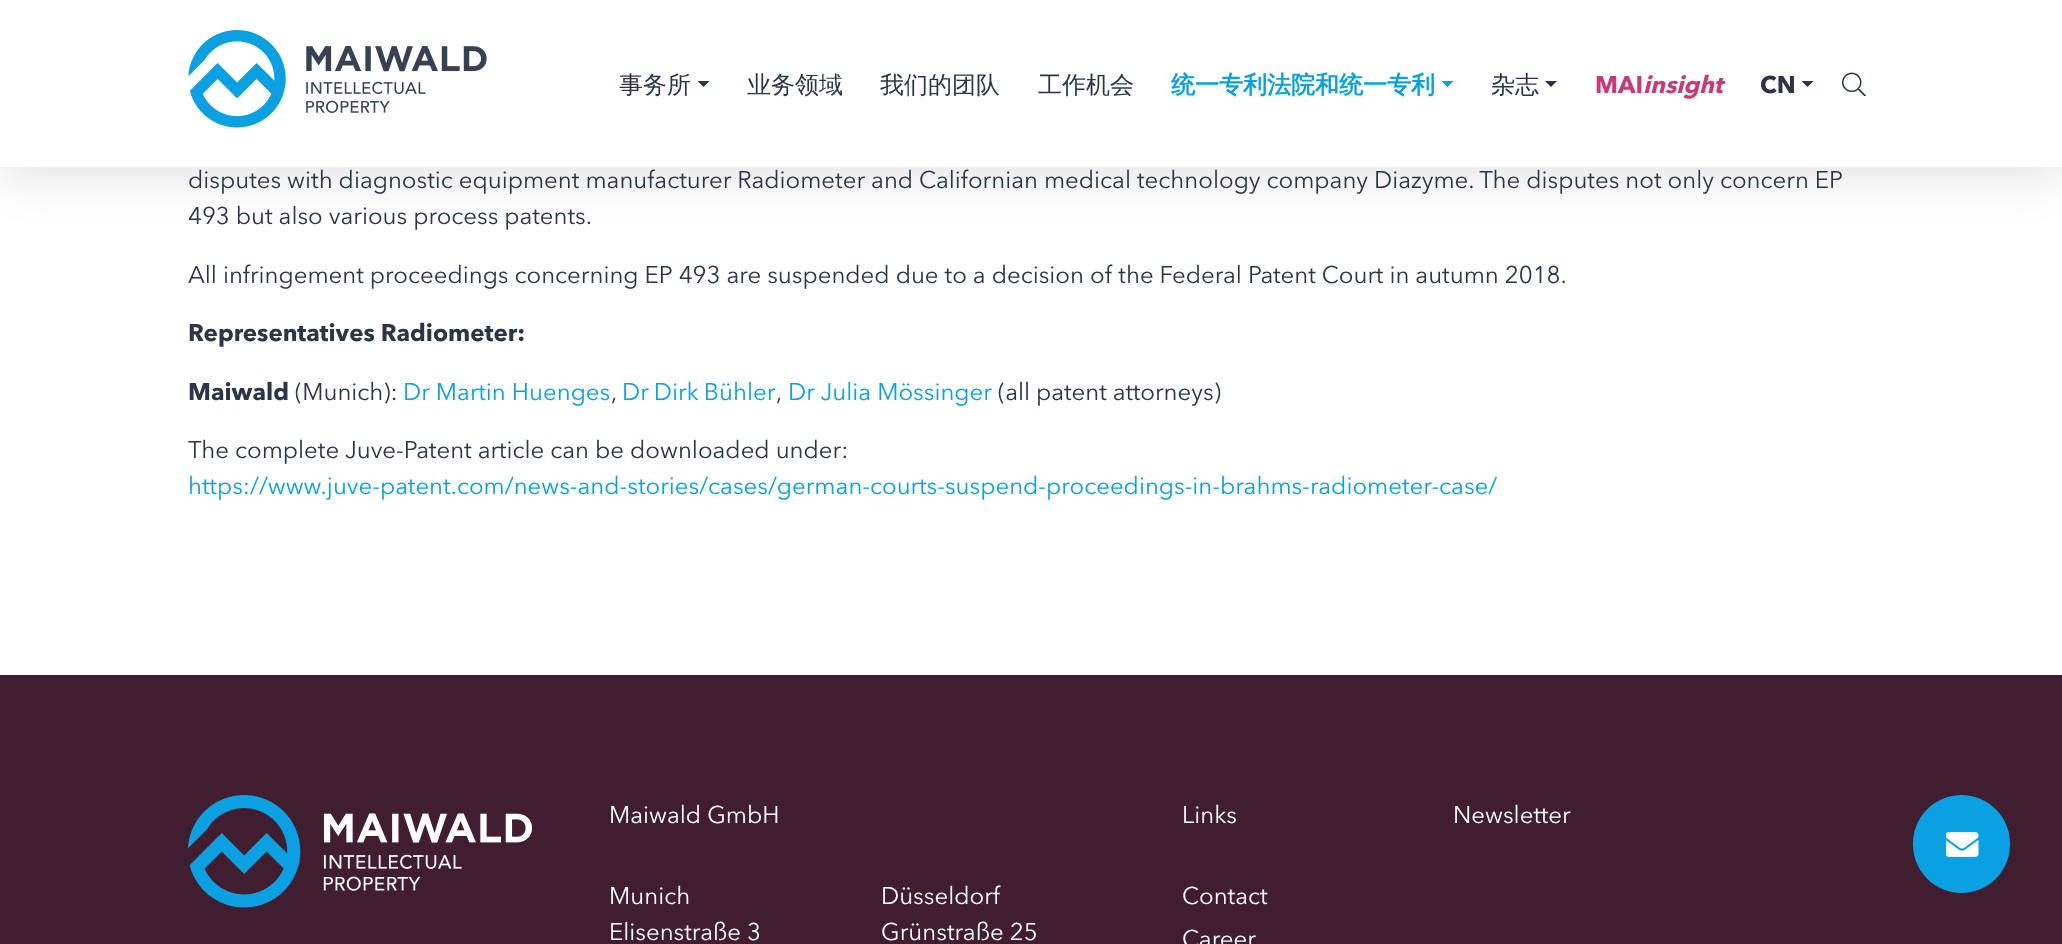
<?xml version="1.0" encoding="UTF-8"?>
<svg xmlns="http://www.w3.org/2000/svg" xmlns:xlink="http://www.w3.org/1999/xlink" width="2062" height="944">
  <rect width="100%" height="100%" fill="#ffffff" />
  <rect y="12" width="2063" height="167" fill="#000000" fill-opacity="0.1" filter="blur(22.5px)" />
  <rect width="2062" height="167" fill="#ffffff" />
  <image x="188" y="30" width="299" height="98" xlink:href="image1.png" />
  <path d="M 697.5 81 h 12 l -6 6 z" fill="#2b3545" />
  <path d="M 1441.5 81 h 12 l -6 6 z" fill="#0aa1e2" />
  <path d="M 1545 81 h 12 l -6 6 z" fill="#2b3545" />
  <path d="M 1801.5 81 h 12 l -6 6 z" fill="#2b3545" />
  <image x="1842" y="72" width="24" height="24" xlink:href="image2.png" />
  <rect y="675" width="2062" height="269" fill="#411d30" />
  <image x="188" y="795" width="345" height="113" xlink:href="image3.png" />
  <rect x="1913" y="795" width="97" height="98" rx="48.5" fill="#0aa1e2" />
  <image x="1946" y="832" width="33" height="25" xlink:href="image4.png" />
  <text x="619" y="93" style="font-family: WenQuanYi Zen Hei; font-size: 24px; font-weight: 500; fill: #2b3545">事务所</text>
  <text x="747" y="93" style="font-family: WenQuanYi Zen Hei; font-size: 24px; font-weight: 500; fill: #2b3545">业务领域</text>
  <text x="880" y="93" style="font-family: WenQuanYi Zen Hei; font-size: 24px; font-weight: 500; fill: #2b3545">我们的团队</text>
  <text x="1038" y="93" style="font-family: WenQuanYi Zen Hei; font-size: 24px; font-weight: 500; fill: #2b3545">工作机会</text>
  <text x="1171" y="93" style="font-family: WenQuanYi Zen Hei; font-size: 24px; font-weight: bold; fill: #0aa1e2">统一专利法院和统一专利</text>
  <text x="1491" y="93" style="font-family: WenQuanYi Zen Hei; font-size: 24px; font-weight: 500; fill: #2b3545">杂志</text>
  <text x="1595" y="93" style="font-family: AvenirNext; font-size: 24px; font-weight: bold; fill: #c93977">MAI</text>
  <text x="1643" y="93" style="font-family: AvenirNext; font-size: 24px; font-weight: bold; font-style: italic; fill: #c93977">insight</text>
  <text x="1760" y="93" style="font-family: AvenirNext; font-size: 24px; font-weight: bold; fill: #2b3545">CN</text>
  <text x="188" y="188" style="font-family: AvenirNext; font-size: 24px; fill: #2b3545">disputes with diagnostic equipment manufacturer Radiometer and Californian medical technology company Diazyme. The disputes not only concern EP</text>
  <text x="188" y="224" style="font-family: AvenirNext; font-size: 24px; fill: #2b3545">493 but also various process patents.</text>
  <text x="188" y="283" style="font-family: AvenirNext; font-size: 24px; fill: #2b3545">All infringement proceedings concerning EP 493 are suspended due to a decision of the Federal Patent Court in autumn 2018.</text>
  <text x="188" y="341" style="font-family: AvenirNext; font-size: 24px; font-weight: bold; fill: #2b3545">Representatives Radiometer:</text>
  <text x="188" y="400" style="font-family: AvenirNext; font-size: 24px; font-weight: bold; fill: #2b3545">Maiwald</text>
  <text x="295" y="400" style="font-family: AvenirNext; font-size: 24px; fill: #2b3545">(Munich):</text>
  <text x="403" y="400" style="font-family: AvenirNext; font-size: 24px; fill: #0aa1e2">Dr Martin Huenges</text>
  <text x="611" y="400" style="font-family: AvenirNext; font-size: 24px; fill: #2b3545">,</text>
  <text x="622" y="400" word-spacing="-1" style="font-family: AvenirNext; font-size: 24px; fill: #0aa1e2">Dr Dirk Bühler</text>
  <text x="776" y="400" style="font-family: AvenirNext; font-size: 24px; fill: #2b3545">,</text>
  <text x="788" y="400" style="font-family: AvenirNext; font-size: 24px; fill: #0aa1e2">Dr Julia Mössinger</text>
  <text x="998" y="400" style="font-family: AvenirNext; font-size: 24px; fill: #2b3545">(all patent attorneys)</text>
  <text x="188" y="458" style="font-family: AvenirNext; font-size: 24px; fill: #2b3545">The complete Juve-Patent article can be downloaded under:</text>
  <text x="188" y="494" style="font-family: AvenirNext; font-size: 24px; fill: #0aa1e2">https://www.juve-patent.com/news-and-stories/cases/german-courts-suspend-proceedings-in-brahms-radiometer-case/</text>
  <text x="609" y="823" style="font-family: AvenirNext; font-size: 24px; fill: #ffffff">Maiwald GmbH</text>
  <text x="609" y="904" style="font-family: AvenirNext; font-size: 24px; fill: #ffffff">Munich</text>
  <text x="609" y="940" style="font-family: AvenirNext; font-size: 24px; fill: #ffffff">Elisenstraße 3</text>
  <text x="1182" y="823" style="font-family: AvenirNext; font-size: 24px; fill: #ffffff">Links</text>
  <text x="1182" y="904" style="font-family: AvenirNext; font-size: 24px; fill: #ffffff">Contact</text>
  <text x="1182" y="947" style="font-family: AvenirNext; font-size: 24px; fill: #ffffff">Career</text>
  <text x="1453" y="823" style="font-family: AvenirNext; font-size: 24px; fill: #ffffff">Newsletter</text>
  <text x="881" y="904" style="font-family: AvenirNext; font-size: 24px; fill: #ffffff">Düsseldorf</text>
  <text x="881" y="940" style="font-family: AvenirNext; font-size: 24px; fill: #ffffff">Grünstraße 25</text>
</svg>
